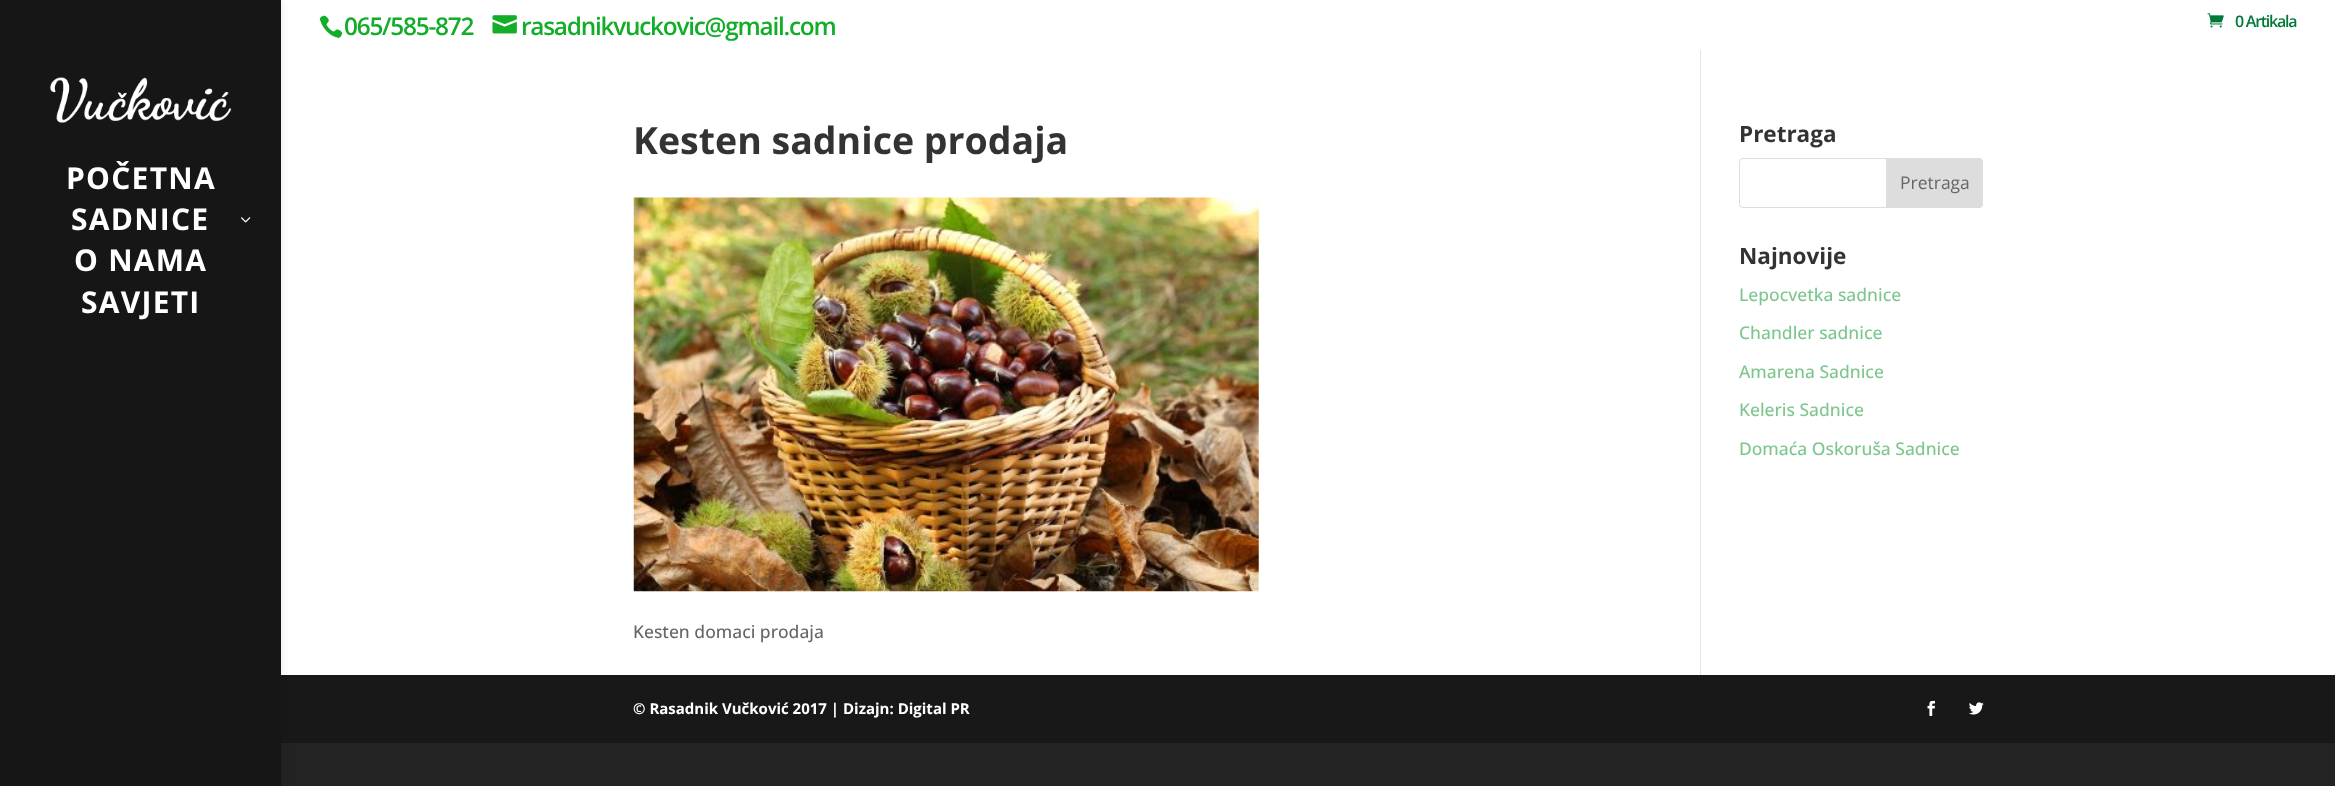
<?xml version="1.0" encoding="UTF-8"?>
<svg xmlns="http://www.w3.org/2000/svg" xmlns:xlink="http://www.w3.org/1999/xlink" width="2335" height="786">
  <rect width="100%" height="100%" fill="#232323" />
  <rect x="281" width="2054" height="675" fill="#ffffff" />
  <image x="319" y="15" width="24" height="23" xlink:href="image1.png" />
  <image x="492" y="15" width="25" height="19" xlink:href="image2.png" />
  <image x="2207" y="13" width="17" height="15" xlink:href="image3.png" />
  <rect x="281" y="675" width="2054" height="68" fill="#181818" />
  <rect width="281" height="786" fill="#000000" fill-opacity="0.1" filter="blur(4.5px)" />
  <rect width="281" height="786" fill="#161616" />
  <image x="50" y="77" width="182" height="46" xlink:href="image4.png" />
  <image x="241" y="217" width="10" height="6" xlink:href="image5.png" />
  <rect x="1700" y="50" width="1" height="625" fill="#e2e2e2" />
  <image x="633" y="197" width="626" height="395" xlink:href="image6.png" />
  <rect x="1739.5" y="158.5" width="243" height="49" rx="3.5" fill="none" stroke="#dddddd" />
  <path d="M 1886.5 158.5 h 92.5 c 2 0 3.5 1.5 3.5 3.5 v 42 c 0 2 -1.5 3.5 -3.5 3.5 h -92.5 z" fill="#dddddd" stroke="#dddddd" />
  <image x="1927" y="700" width="8" height="16" xlink:href="image7.png" />
  <image x="1969" y="702" width="15" height="13" xlink:href="image8.png" />
  <text x="344" y="35" style="font-family: Open Sans; font-size: 24.4px; font-weight: 600; letter-spacing: -1.25px; fill: #13ad2a">065/585-872</text>
  <text x="521" y="35" style="font-family: Open Sans; font-size: 24.4px; font-weight: 600; letter-spacing: -1.25px; fill: #13ad2a">rasadnikvuckovic@gmail.com</text>
  <text x="2235" y="27" style="font-family: Open Sans; font-size: 16px; font-weight: 600; letter-spacing: -1.25px; fill: #007a39">0 Artikala</text>
  <text x="66" y="189" style="font-family: Open Sans; font-size: 30px; font-weight: bold; letter-spacing: 1.25px; fill: #ffffff">POČETNA</text>
  <text x="71" y="230" style="font-family: Open Sans; font-size: 30px; font-weight: bold; letter-spacing: 1.25px; fill: #ffffff">SADNICE</text>
  <text x="74" y="271" style="font-family: Open Sans; font-size: 30px; font-weight: bold; letter-spacing: 1.25px; fill: #ffffff">O NAMA</text>
  <text x="81" y="313" style="font-family: Open Sans; font-size: 30px; font-weight: bold; letter-spacing: 1.25px; fill: #ffffff">SAVJETI</text>
  <text x="633" y="154" style="font-family: Open Sans; font-size: 37.5px; font-weight: bold; fill: #333333">Kesten sadnice prodaja</text>
  <text x="633" y="638" style="font-family: Open Sans; font-size: 17.5px; font-weight: 500; fill: #666666">Kesten domaci prodaja</text>
  <text x="1739" y="142" style="font-family: Open Sans; font-size: 22.5px; font-weight: bold; fill: #333333">Pretraga</text>
  <text x="1900" y="189" style="font-family: Open Sans; font-size: 17.5px; fill: #666666">Pretraga</text>
  <text x="1739" y="264" style="font-family: Open Sans; font-size: 22.5px; font-weight: bold; fill: #333333">Najnovije</text>
  <text x="1739" y="301" style="font-family: Open Sans; font-size: 17.5px; font-weight: 500; fill: #7cc68d">Lepocvetka sadnice</text>
  <text x="1739" y="339" style="font-family: Open Sans; font-size: 17.5px; font-weight: 500; fill: #7cc68d">Chandler sadnice</text>
  <text x="1739" y="378" style="font-family: Open Sans; font-size: 17.5px; font-weight: 500; fill: #7cc68d">Amarena Sadnice</text>
  <text x="1739" y="416" style="font-family: Open Sans; font-size: 17.5px; font-weight: 500; fill: #7cc68d">Keleris Sadnice</text>
  <text x="1739" y="455" style="font-family: Open Sans; font-size: 17.5px; font-weight: 500; fill: #7cc68d">Domaća Oskoruša Sadnice</text>
  <text x="633" y="714" style="font-family: Open Sans; font-size: 15px; font-weight: bold; fill: #ffffff">© Rasadnik Vučković 2017 | Dizajn: Digital PR</text>
</svg>
